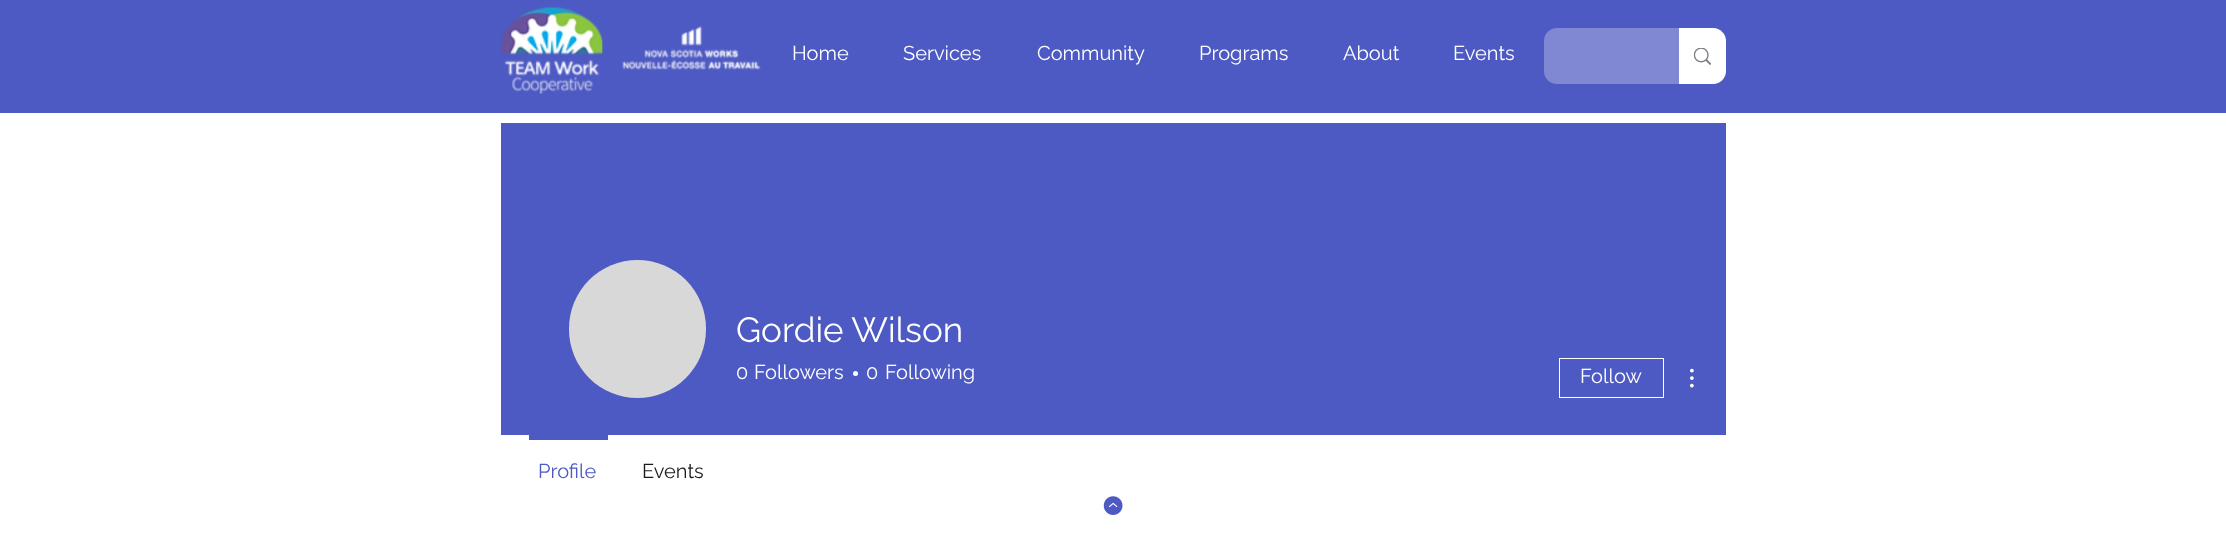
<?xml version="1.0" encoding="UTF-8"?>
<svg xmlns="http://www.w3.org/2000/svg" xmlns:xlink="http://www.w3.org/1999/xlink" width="2226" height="540">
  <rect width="100%" height="100%" fill="#ffffff" />
  <rect width="2226" height="113" fill="#4e5ac3" />
  <image x="501" y="7" width="102" height="87" xlink:href="image1.png" />
  <image x="622" y="26" width="139" height="44" xlink:href="image2.png" />
  <rect x="1544" y="28" width="182" height="56" rx="13" fill="#8088d4" />
  <path d="M 1679 28 h 34 c 7 0 13 6 13 13 v 30 c 0 7 -6 13 -13 13 h -34 z" fill="#ffffff" />
  <image x="1694" y="48" width="17" height="17" xlink:href="image3.png" />
  <rect x="501" y="123" width="1225" height="312" fill="#4e5ac3" />
  <rect x="569" y="260" width="137" height="138" rx="68.5" fill="#d8d8d8" />
  <circle cx="855.5" cy="373.5" r="2.5" fill="#ffffff" />
  <rect x="1559.5" y="358.5" width="104" height="39" fill="none" stroke="#ffffff" />
  <image x="1690" y="368" width="4" height="20" xlink:href="image4.png" />
  <rect x="529" y="435" width="79" height="5" fill="#4e5ac3" />
  <image x="1103" y="496" width="20" height="19" xlink:href="image5.png" />
  <text x="792" y="60" style="font-family: Raleway; font-size: 20px; fill: #ffffff">Home</text>
  <text x="903" y="60" style="font-family: Raleway; font-size: 20px; fill: #ffffff">Services</text>
  <text x="1037" y="60" style="font-family: Raleway; font-size: 20px; fill: #ffffff">Community</text>
  <text x="1199" y="60" style="font-family: Raleway; font-size: 20px; fill: #ffffff">Programs</text>
  <text x="1343" y="60" style="font-family: Raleway; font-size: 20px; fill: #ffffff">About</text>
  <text x="1453" y="60" style="font-family: Raleway; font-size: 20px; fill: #ffffff">Events</text>
  <text x="736" y="342" style="font-family: Raleway; font-size: 35px; fill: #ffffff">Gordie Wilson</text>
  <text x="736" y="379" style="font-family: Raleway; font-size: 20px; fill: #ffffff">0</text>
  <text x="754" y="379" style="font-family: Raleway; font-size: 20px; fill: #ffffff">Followers</text>
  <text x="866" y="379" style="font-family: Raleway; font-size: 20px; fill: #ffffff">0</text>
  <text x="885" y="379" style="font-family: Raleway; font-size: 20px; fill: #ffffff">Following</text>
  <text x="1580" y="383" style="font-family: Raleway; font-size: 20px; fill: #ffffff">Follow</text>
  <text x="538" y="478" style="font-family: Raleway; font-size: 20px; fill: #4e5ac3">Profile</text>
  <text x="642" y="478" style="font-family: Raleway; font-size: 20px; fill: #1b1b1e">Events</text>
</svg>
